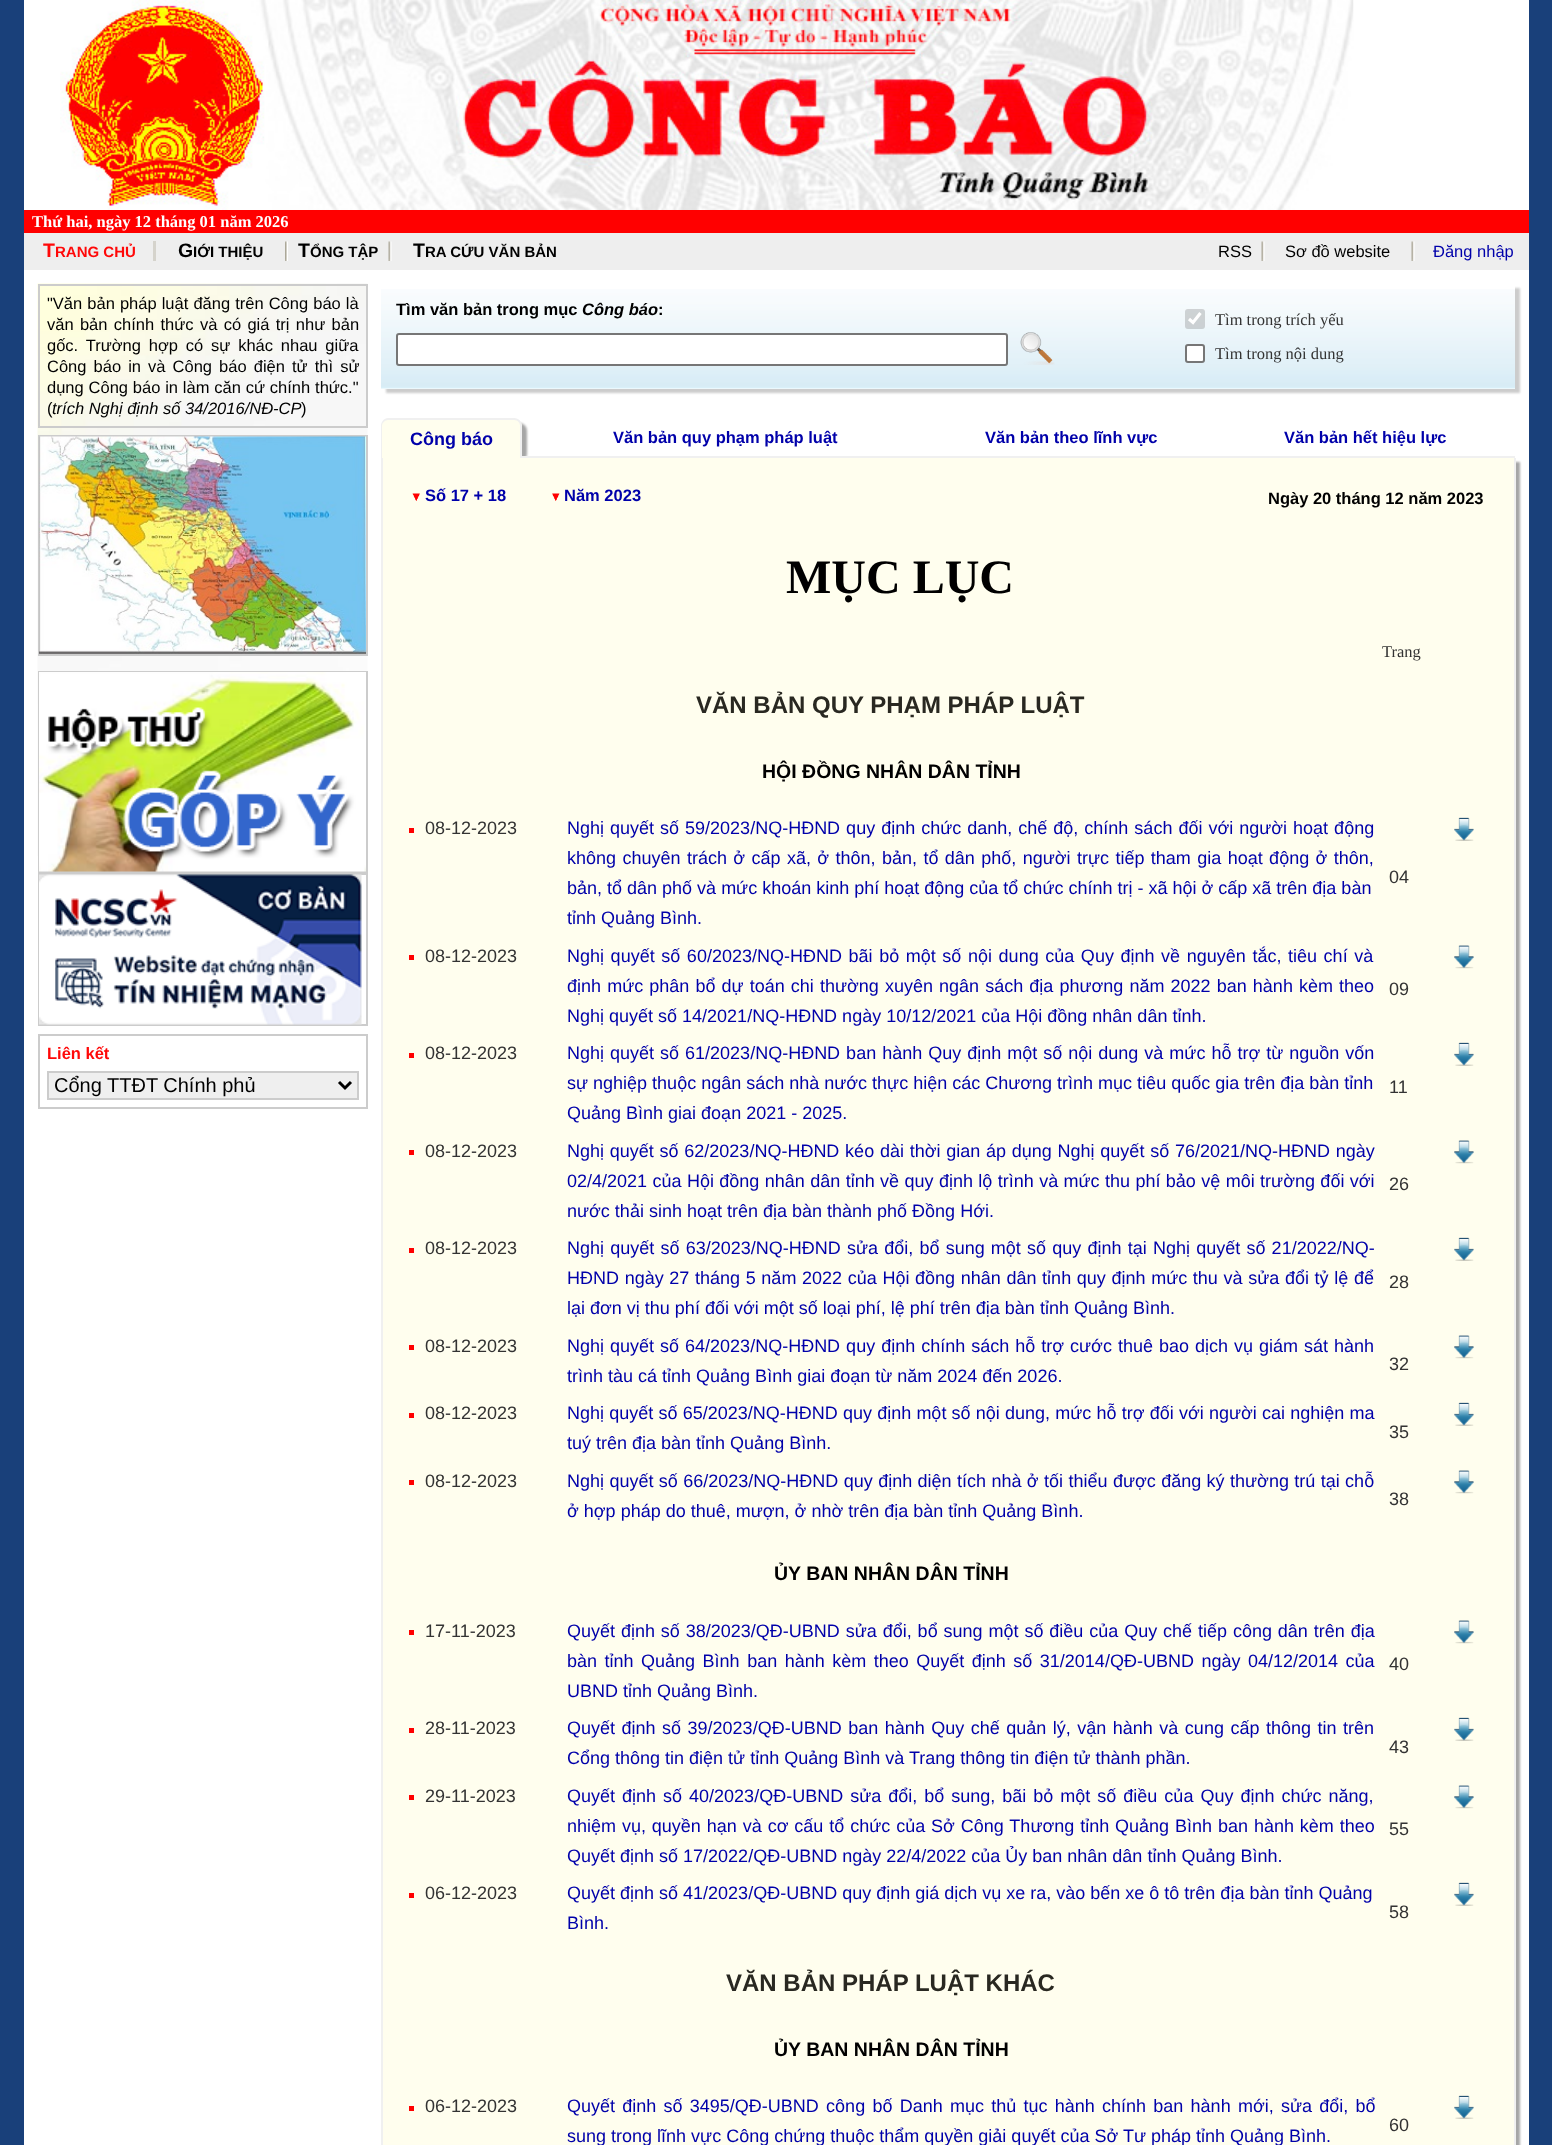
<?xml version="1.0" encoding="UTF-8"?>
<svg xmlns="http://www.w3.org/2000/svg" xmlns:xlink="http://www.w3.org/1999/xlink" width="1552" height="2145">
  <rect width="100%" height="100%" fill="#19407a" />
  <rect x="24" width="1505" height="2145" fill="#ffffff" />
  <image x="60" y="0" width="1294" height="210" xlink:href="image1.png" />
  <rect x="24" y="210" width="1505" height="23" fill="#ff0000" />
  <rect x="24" y="233" width="1505" height="37" fill="#eeeeee" />
  <rect x="153" y="241" width="3" height="20" fill="#d5d3cc" />
  <image x="285" y="241" width="3" height="20" xlink:href="image2.png" />
  <image x="388" y="241" width="4" height="20" xlink:href="image3.png" />
  <image x="1261" y="241" width="4" height="20" xlink:href="image3.png" />
  <image x="1411" y="241" width="4" height="20" xlink:href="image3.png" />
  <image x="37" y="283" width="331" height="573" xlink:href="image4.png" />
  <rect x="39" y="285" width="328" height="142" fill="none" stroke="#cccccc" stroke-width="2" />
  <rect x="39" y="436" width="328" height="219" fill="none" stroke="#cccccc" stroke-width="2" />
  <image x="39" y="436" width="327" height="218" xlink:href="image5.png" />
  <rect x="39" y="672" width="328" height="200" fill="none" stroke="#cccccc" stroke-width="2" />
  <image x="39" y="672" width="327" height="200" xlink:href="image6.png" />
  <rect x="39" y="874" width="328" height="151" fill="none" stroke="#cccccc" stroke-width="2" />
  <image x="39" y="874" width="323" height="151" xlink:href="image7.png" />
  <rect x="39" y="1035" width="328" height="73" fill="none" stroke="#cccccc" stroke-width="2" />
  <rect x="48" y="1072" width="310" height="27" fill="#efefef" stroke="#cccccc" stroke-width="2" />
  <path d="M 339 1082 l 6 6 l 6 -6" fill="none" stroke="#000000" stroke-width="3" />
  <rect x="386" y="288" width="1134" height="105" fill="#cccccc" filter="blur(1px)" />
  <rect x="384" y="286" width="1131" height="103" fill="#ffffff" />
  <image x="381" y="289" width="1134" height="100" xlink:href="image8.png" />
  <rect x="397" y="334" width="610" height="31" rx="2" fill="#ffffff" stroke="#767676" stroke-width="2" />
  <image x="1020" y="332" width="35" height="33" xlink:href="image9.png" />
  <rect x="1185" y="309" width="20" height="20" rx="3" fill="#767676" fill-opacity="0.3" />
  <path d="M 1189 319 l 4 3.5 l 7.5 -9.5" fill="none" stroke="#ffffff" stroke-width="3.1" />
  <rect x="1186" y="345" width="18" height="17" rx="2" fill="#ffffff" stroke="#767676" stroke-width="2" />
  <rect x="386" y="423" width="141" height="39" rx="8" fill="#a6a6a6" filter="blur(1px)" />
  <path d="M 389 419 h 125 c 4.5 0 8 3.5 8 8 v 31 h -141 v -31 c 0 -4.5 3.5 -8 8 -8 z" fill="#fffeee" />
  <path d="M 388 418 h 126 c 5 0 8 4 8 8 v 32 h -141 v -32 c 0 -4 3 -8 7 -8 z m 0 2 h 126 c 4 0 6 3 6 6 v 32 h -138 v -32 c 0 -3 3 -6 6 -6 z" fill="#f0f0f0" fill-rule="evenodd" />
  <rect x="522" y="456" width="993" height="2" fill="#f0f0f0" />
  <rect x="386" y="462" width="1134" height="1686" fill="#a6a6a6" filter="blur(1px)" />
  <rect x="383" y="458" width="1131" height="1687" fill="#fffeee" />
  <rect x="1514" y="458" width="2" height="1687" fill="#f0f0f0" />
  <rect x="381" y="458" width="2" height="1687" fill="#f0f0f0" />
  <image x="412" y="493" width="8" height="8" xlink:href="image10.png" />
  <image x="552" y="493" width="8" height="8" xlink:href="image11.png" />
  <rect x="409" y="828" width="5" height="5" fill="#ff0000" />
  <image x="1454" y="817" width="20" height="24" xlink:href="image12.png" />
  <rect x="409" y="955" width="5" height="5" fill="#ff0000" />
  <image x="1454" y="945" width="20" height="24" xlink:href="image13.png" />
  <rect x="409" y="1053" width="5" height="5" fill="#ff0000" />
  <image x="1454" y="1042" width="20" height="24" xlink:href="image12.png" />
  <rect x="409" y="1150" width="5" height="5" fill="#ff0000" />
  <image x="1454" y="1140" width="20" height="24" xlink:href="image13.png" />
  <rect x="409" y="1248" width="5" height="5" fill="#ff0000" />
  <image x="1454" y="1237" width="20" height="24" xlink:href="image12.png" />
  <rect x="409" y="1345" width="5" height="5" fill="#ff0000" />
  <image x="1454" y="1335" width="20" height="24" xlink:href="image13.png" />
  <rect x="409" y="1413" width="5" height="5" fill="#ff0000" />
  <image x="1454" y="1402" width="20" height="24" xlink:href="image12.png" />
  <rect x="409" y="1480" width="5" height="5" fill="#ff0000" />
  <image x="1454" y="1470" width="20" height="24" xlink:href="image13.png" />
  <rect x="409" y="1630" width="5" height="5" fill="#ff0000" />
  <image x="1454" y="1620" width="20" height="24" xlink:href="image13.png" />
  <rect x="409" y="1728" width="5" height="5" fill="#ff0000" />
  <image x="1454" y="1717" width="20" height="24" xlink:href="image12.png" />
  <rect x="409" y="1795" width="5" height="5" fill="#ff0000" />
  <image x="1454" y="1785" width="20" height="24" xlink:href="image13.png" />
  <rect x="409" y="1893" width="5" height="5" fill="#ff0000" />
  <image x="1454" y="1882" width="20" height="24" xlink:href="image12.png" />
  <rect x="409" y="2106" width="5" height="5" fill="#ff0000" />
  <image x="1454" y="2095" width="20" height="24" xlink:href="image12.png" />
  <text x="32" y="227" style="font-family: Liberation Serif; font-size: 16.5px; font-weight: bold; fill: #ffffff">Thứ hai, ngày 12 tháng 01 năm 2026</text>
  <text x="43" y="257" style="font-family: Liberation Sans; font-size: 19.5px; font-weight: bold; fill: #ff0808">T</text>
  <text x="55" y="257" style="font-family: Liberation Sans; font-size: 15px; font-weight: bold; fill: #ff0808">RANG CHỦ</text>
  <text x="178" y="257" style="font-family: Liberation Sans; font-size: 19.5px; font-weight: bold; fill: #000000">G</text>
  <text x="193" y="257" style="font-family: Liberation Sans; font-size: 15px; font-weight: bold; fill: #000000">IỚI THIỆU</text>
  <text x="298" y="257" style="font-family: Liberation Sans; font-size: 19.5px; font-weight: bold; fill: #000000">T</text>
  <text x="310" y="257" style="font-family: Liberation Sans; font-size: 15px; font-weight: bold; fill: #000000">ỔNG TẬP</text>
  <text x="413" y="257" style="font-family: Liberation Sans; font-size: 19.5px; font-weight: bold; fill: #000000">T</text>
  <text x="425" y="257" style="font-family: Liberation Sans; font-size: 15px; font-weight: bold; fill: #000000">RA CỨU VĂN BẢN</text>
  <text x="1218" y="257" style="font-family: Liberation Sans; font-size: 16.5px; fill: #000000">RSS</text>
  <text x="1285" y="257" style="font-family: Liberation Sans; font-size: 16.5px; fill: #000000">Sơ đồ website</text>
  <text x="1433" y="257" style="font-family: Liberation Sans; font-size: 16.5px; fill: #0000aa">Đăng nhập</text>
  <text x="47" y="309" word-spacing="0.5" style="font-family: Liberation Sans; font-size: 16.5px; fill: #000000">"Văn bản pháp luật đăng trên Công báo là</text>
  <text x="47" y="330" word-spacing="1.75" style="font-family: Liberation Sans; font-size: 16.5px; fill: #000000">văn bản chính thức và có giá trị như bản</text>
  <text x="47" y="351" word-spacing="3.25" style="font-family: Liberation Sans; font-size: 16.5px; fill: #000000">gốc. Trường hợp có sự khác nhau giữa</text>
  <text x="47" y="372" word-spacing="2.5" style="font-family: Liberation Sans; font-size: 16.5px; fill: #000000">Công báo in và Công báo điện tử thì sử</text>
  <text x="47" y="393" word-spacing="0.25" style="font-family: Liberation Sans; font-size: 16.5px; fill: #000000">dụng Công báo in làm căn cứ chính thức."</text>
  <text x="47" y="414" style="font-family: Liberation Sans; font-size: 16.5px; fill: #000000">(</text>
  <text x="52" y="414" style="font-family: Liberation Sans; font-size: 16.5px; font-style: italic; fill: #000000">trích Nghị định số 34/2016/NĐ-CP</text>
  <text x="301" y="414" style="font-family: Liberation Sans; font-size: 16.5px; fill: #000000">)</text>
  <text x="47" y="1059" style="font-family: Liberation Sans; font-size: 16.5px; font-weight: bold; fill: #ff0808">Liên kết</text>
  <text x="54" y="1092" style="font-family: Liberation Sans; font-size: 20px; fill: #000000">Cổng TTĐT Chính phủ</text>
  <text x="396" y="315" style="font-family: Liberation Sans; font-size: 16.5px; font-weight: bold; fill: #000000">Tìm văn bản trong mục</text>
  <text x="582" y="315" style="font-family: Liberation Sans; font-size: 16.5px; font-weight: bold; font-style: italic; fill: #000000">Công báo</text>
  <text x="658" y="315" style="font-family: Liberation Sans; font-size: 16.5px; font-weight: bold; fill: #000000">:</text>
  <text x="1215" y="325" style="font-family: Liberation Serif; font-size: 16.5px; fill: #333333">Tìm trong trích yếu</text>
  <text x="1215" y="359" style="font-family: Liberation Serif; font-size: 16.5px; fill: #333333">Tìm trong nội dung</text>
  <text x="410" y="445" style="font-family: Liberation Sans; font-size: 18px; font-weight: bold; fill: #0000aa">Công báo</text>
  <text x="613" y="443" style="font-family: Liberation Sans; font-size: 16.5px; font-weight: bold; fill: #0000aa">Văn bản quy phạm pháp luật</text>
  <text x="985" y="443" style="font-family: Liberation Sans; font-size: 16.5px; font-weight: bold; fill: #0000aa">Văn bản theo lĩnh vực</text>
  <text x="1284" y="443" style="font-family: Liberation Sans; font-size: 16.5px; font-weight: bold; fill: #0000aa">Văn bản hết hiệu lực</text>
  <text x="425" y="501" style="font-family: Liberation Sans; font-size: 16.5px; font-weight: bold; fill: #0000aa">Số 17 + 18</text>
  <text x="564" y="501" style="font-family: Liberation Sans; font-size: 16.5px; font-weight: bold; fill: #0000aa">Năm 2023</text>
  <text x="1268" y="504" style="font-family: Liberation Sans; font-size: 16.5px; font-weight: bold; fill: #000000">Ngày 20 tháng 12 năm 2023</text>
  <text x="786" y="593" style="font-family: Liberation Serif; font-size: 48px; font-weight: bold; fill: #000000">MỤC LỤC</text>
  <text x="1382" y="657" style="font-family: Liberation Serif; font-size: 16.5px; fill: #333333">Trang</text>
  <text x="696" y="713" style="font-family: Liberation Sans; font-size: 24px; font-weight: bold; fill: #292821">VĂN BẢN QUY PHẠM PHÁP LUẬT</text>
  <text x="762" y="778" style="font-family: Liberation Sans; font-size: 19.5px; font-weight: bold; fill: #000000">HỘI ĐỒNG NHÂN DÂN TỈNH</text>
  <text x="425" y="834" style="font-family: Liberation Sans; font-size: 18px; fill: #333333">08-12-2023</text>
  <text x="567" y="834" word-spacing="1" style="font-family: Liberation Sans; font-size: 18px; fill: #0000aa">Nghị quyết số 59/2023/NQ-HĐND quy định chức danh, chế độ, chính sách đối với người hoạt động</text>
  <text x="567" y="864" word-spacing="1.4" style="font-family: Liberation Sans; font-size: 18px; fill: #0000aa">không chuyên trách ở cấp xã, ở thôn, bản, tổ dân phố, người trực tiếp tham gia hoạt động ở thôn,</text>
  <text x="567" y="894" style="font-family: Liberation Sans; font-size: 18px; fill: #0000aa">bản, tổ dân phố và mức khoán kinh phí hoạt động của tổ chức chính trị - xã hội ở cấp xã trên địa bàn</text>
  <text x="567" y="924" style="font-family: Liberation Sans; font-size: 18px; fill: #0000aa">tỉnh Quảng Bình.</text>
  <text x="1389" y="883" style="font-family: Liberation Sans; font-size: 18px; fill: #333333">04</text>
  <text x="425" y="962" style="font-family: Liberation Sans; font-size: 18px; fill: #333333">08-12-2023</text>
  <text x="567" y="962" word-spacing="1.6" style="font-family: Liberation Sans; font-size: 18px; fill: #0000aa">Nghị quyết số 60/2023/NQ-HĐND bãi bỏ một số nội dung của Quy định về nguyên tắc, tiêu chí và</text>
  <text x="567" y="992" word-spacing="1.1" style="font-family: Liberation Sans; font-size: 18px; fill: #0000aa">định mức phân bổ dự toán chi thường xuyên ngân sách địa phương năm 2022 ban hành kèm theo</text>
  <text x="567" y="1022" style="font-family: Liberation Sans; font-size: 18px; fill: #0000aa">Nghị quyết số 14/2021/NQ-HĐND ngày 10/12/2021 của Hội đồng nhân dân tỉnh.</text>
  <text x="1389" y="995" style="font-family: Liberation Sans; font-size: 18px; fill: #333333">09</text>
  <text x="425" y="1059" style="font-family: Liberation Sans; font-size: 18px; fill: #333333">08-12-2023</text>
  <text x="567" y="1059" word-spacing="1" style="font-family: Liberation Sans; font-size: 18px; fill: #0000aa">Nghị quyết số 61/2023/NQ-HĐND ban hành Quy định một số nội dung và mức hỗ trợ từ nguồn vốn</text>
  <text x="567" y="1089" style="font-family: Liberation Sans; font-size: 18px; fill: #0000aa">sự nghiệp thuộc ngân sách nhà nước thực hiện các Chương trình mục tiêu quốc gia trên địa bàn tỉnh</text>
  <text x="567" y="1119" style="font-family: Liberation Sans; font-size: 18px; fill: #0000aa">Quảng Bình giai đoạn 2021 - 2025.</text>
  <text x="1389" y="1093" style="font-family: Liberation Sans; font-size: 18px; fill: #333333">11</text>
  <text x="425" y="1157" style="font-family: Liberation Sans; font-size: 18px; fill: #333333">08-12-2023</text>
  <text x="567" y="1157" word-spacing="0.75" style="font-family: Liberation Sans; font-size: 18px; fill: #0000aa">Nghị quyết số 62/2023/NQ-HĐND kéo dài thời gian áp dụng Nghị quyết số 76/2021/NQ-HĐND ngày</text>
  <text x="567" y="1187" word-spacing="0.4" style="font-family: Liberation Sans; font-size: 18px; fill: #0000aa">02/4/2021 của Hội đồng nhân dân tỉnh về quy định lộ trình và mức thu phí bảo vệ môi trường đối với</text>
  <text x="567" y="1217" style="font-family: Liberation Sans; font-size: 18px; fill: #0000aa">nước thải sinh hoạt trên địa bàn thành phố Đồng Hới.</text>
  <text x="1389" y="1190" style="font-family: Liberation Sans; font-size: 18px; fill: #333333">26</text>
  <text x="425" y="1254" style="font-family: Liberation Sans; font-size: 18px; fill: #333333">08-12-2023</text>
  <text x="567" y="1254" word-spacing="1.2" style="font-family: Liberation Sans; font-size: 18px; fill: #0000aa">Nghị quyết số 63/2023/NQ-HĐND sửa đổi, bổ sung một số quy định tại Nghị quyết số 21/2022/NQ-</text>
  <text x="567" y="1284" word-spacing="0.65" style="font-family: Liberation Sans; font-size: 18px; fill: #0000aa">HĐND ngày 27 tháng 5 năm 2022 của Hội đồng nhân dân tỉnh quy định mức thu và sửa đổi tỷ lệ để</text>
  <text x="567" y="1314" style="font-family: Liberation Sans; font-size: 18px; fill: #0000aa">lại đơn vị thu phí đối với một số loại phí, lệ phí trên địa bàn tỉnh Quảng Bình.</text>
  <text x="1389" y="1288" style="font-family: Liberation Sans; font-size: 18px; fill: #333333">28</text>
  <text x="425" y="1352" style="font-family: Liberation Sans; font-size: 18px; fill: #333333">08-12-2023</text>
  <text x="567" y="1352" word-spacing="1" style="font-family: Liberation Sans; font-size: 18px; fill: #0000aa">Nghị quyết số 64/2023/NQ-HĐND quy định chính sách hỗ trợ cước thuê bao dịch vụ giám sát hành</text>
  <text x="567" y="1382" style="font-family: Liberation Sans; font-size: 18px; fill: #0000aa">trình tàu cá tỉnh Quảng Bình giai đoạn từ năm 2024 đến 2026.</text>
  <text x="1389" y="1370" style="font-family: Liberation Sans; font-size: 18px; fill: #333333">32</text>
  <text x="425" y="1419" style="font-family: Liberation Sans; font-size: 18px; fill: #333333">08-12-2023</text>
  <text x="567" y="1419" word-spacing="0.2" style="font-family: Liberation Sans; font-size: 18px; fill: #0000aa">Nghị quyết số 65/2023/NQ-HĐND quy định một số nội dung, mức hỗ trợ đối với người cai nghiện ma</text>
  <text x="567" y="1449" style="font-family: Liberation Sans; font-size: 18px; fill: #0000aa">tuý trên địa bàn tỉnh Quảng Bình.</text>
  <text x="1389" y="1438" style="font-family: Liberation Sans; font-size: 18px; fill: #333333">35</text>
  <text x="425" y="1487" style="font-family: Liberation Sans; font-size: 18px; fill: #333333">08-12-2023</text>
  <text x="567" y="1487" word-spacing="0.4" style="font-family: Liberation Sans; font-size: 18px; fill: #0000aa">Nghị quyết số 66/2023/NQ-HĐND quy định diện tích nhà ở tối thiểu được đăng ký thường trú tại chỗ</text>
  <text x="567" y="1517" style="font-family: Liberation Sans; font-size: 18px; fill: #0000aa">ở hợp pháp do thuê, mượn, ở nhờ trên địa bàn tỉnh Quảng Bình.</text>
  <text x="1389" y="1505" style="font-family: Liberation Sans; font-size: 18px; fill: #333333">38</text>
  <text x="774" y="1580" style="font-family: Liberation Sans; font-size: 19.5px; font-weight: bold; fill: #000000">ỦY BAN NHÂN DÂN TỈNH</text>
  <text x="425" y="1637" style="font-family: Liberation Sans; font-size: 18px; fill: #333333">17-11-2023</text>
  <text x="567" y="1637" word-spacing="0.9" style="font-family: Liberation Sans; font-size: 18px; fill: #0000aa">Quyết định số 38/2023/QĐ-UBND sửa đổi, bổ sung một số điều của Quy chế tiếp công dân trên địa</text>
  <text x="567" y="1667" word-spacing="2.5" style="font-family: Liberation Sans; font-size: 18px; fill: #0000aa">bàn tỉnh Quảng Bình ban hành kèm theo Quyết định số 31/2014/QĐ-UBND ngày 04/12/2014 của</text>
  <text x="567" y="1697" style="font-family: Liberation Sans; font-size: 18px; fill: #0000aa">UBND tỉnh Quảng Bình.</text>
  <text x="1389" y="1670" style="font-family: Liberation Sans; font-size: 18px; fill: #333333">40</text>
  <text x="425" y="1734" style="font-family: Liberation Sans; font-size: 18px; fill: #333333">28-11-2023</text>
  <text x="567" y="1734" word-spacing="1.5" style="font-family: Liberation Sans; font-size: 18px; fill: #0000aa">Quyết định số 39/2023/QĐ-UBND ban hành Quy chế quản lý, vận hành và cung cấp thông tin trên</text>
  <text x="567" y="1764" style="font-family: Liberation Sans; font-size: 18px; fill: #0000aa">Cổng thông tin điện tử tỉnh Quảng Bình và Trang thông tin điện tử thành phần.</text>
  <text x="1389" y="1753" style="font-family: Liberation Sans; font-size: 18px; fill: #333333">43</text>
  <text x="425" y="1802" style="font-family: Liberation Sans; font-size: 18px; fill: #333333">29-11-2023</text>
  <text x="567" y="1802" word-spacing="2" style="font-family: Liberation Sans; font-size: 18px; fill: #0000aa">Quyết định số 40/2023/QĐ-UBND sửa đổi, bổ sung, bãi bỏ một số điều của Quy định chức năng,</text>
  <text x="567" y="1832" word-spacing="0.9" style="font-family: Liberation Sans; font-size: 18px; fill: #0000aa">nhiệm vụ, quyền hạn và cơ cấu tổ chức của Sở Công Thương tỉnh Quảng Bình ban hành kèm theo</text>
  <text x="567" y="1862" style="font-family: Liberation Sans; font-size: 18px; fill: #0000aa">Quyết định số 17/2022/QĐ-UBND ngày 22/4/2022 của Ủy ban nhân dân tỉnh Quảng Bình.</text>
  <text x="1389" y="1835" style="font-family: Liberation Sans; font-size: 18px; fill: #333333">55</text>
  <text x="425" y="1899" style="font-family: Liberation Sans; font-size: 18px; fill: #333333">06-12-2023</text>
  <text x="567" y="1899" style="font-family: Liberation Sans; font-size: 18px; fill: #0000aa">Quyết định số 41/2023/QĐ-UBND quy định giá dịch vụ xe ra, vào bến xe ô tô trên địa bàn tỉnh Quảng</text>
  <text x="567" y="1929" style="font-family: Liberation Sans; font-size: 18px; fill: #0000aa">Bình.</text>
  <text x="1389" y="1918" style="font-family: Liberation Sans; font-size: 18px; fill: #333333">58</text>
  <text x="726" y="1991" style="font-family: Liberation Sans; font-size: 24px; font-weight: bold; fill: #292821">VĂN BẢN PHÁP LUẬT KHÁC</text>
  <text x="774" y="2056" style="font-family: Liberation Sans; font-size: 19.5px; font-weight: bold; fill: #000000">ỦY BAN NHÂN DÂN TỈNH</text>
  <text x="425" y="2112" style="font-family: Liberation Sans; font-size: 18px; fill: #333333">06-12-2023</text>
  <text x="567" y="2112" word-spacing="2.25" style="font-family: Liberation Sans; font-size: 18px; fill: #0000aa">Quyết định số 3495/QĐ-UBND công bố Danh mục thủ tục hành chính ban hành mới, sửa đổi, bổ</text>
  <text x="567" y="2142" style="font-family: Liberation Sans; font-size: 18px; fill: #0000aa">sung trong lĩnh vực Công chứng thuộc thẩm quyền giải quyết của Sở Tư pháp tỉnh Quảng Bình.</text>
  <text x="1389" y="2131" style="font-family: Liberation Sans; font-size: 18px; fill: #333333">60</text>
</svg>
